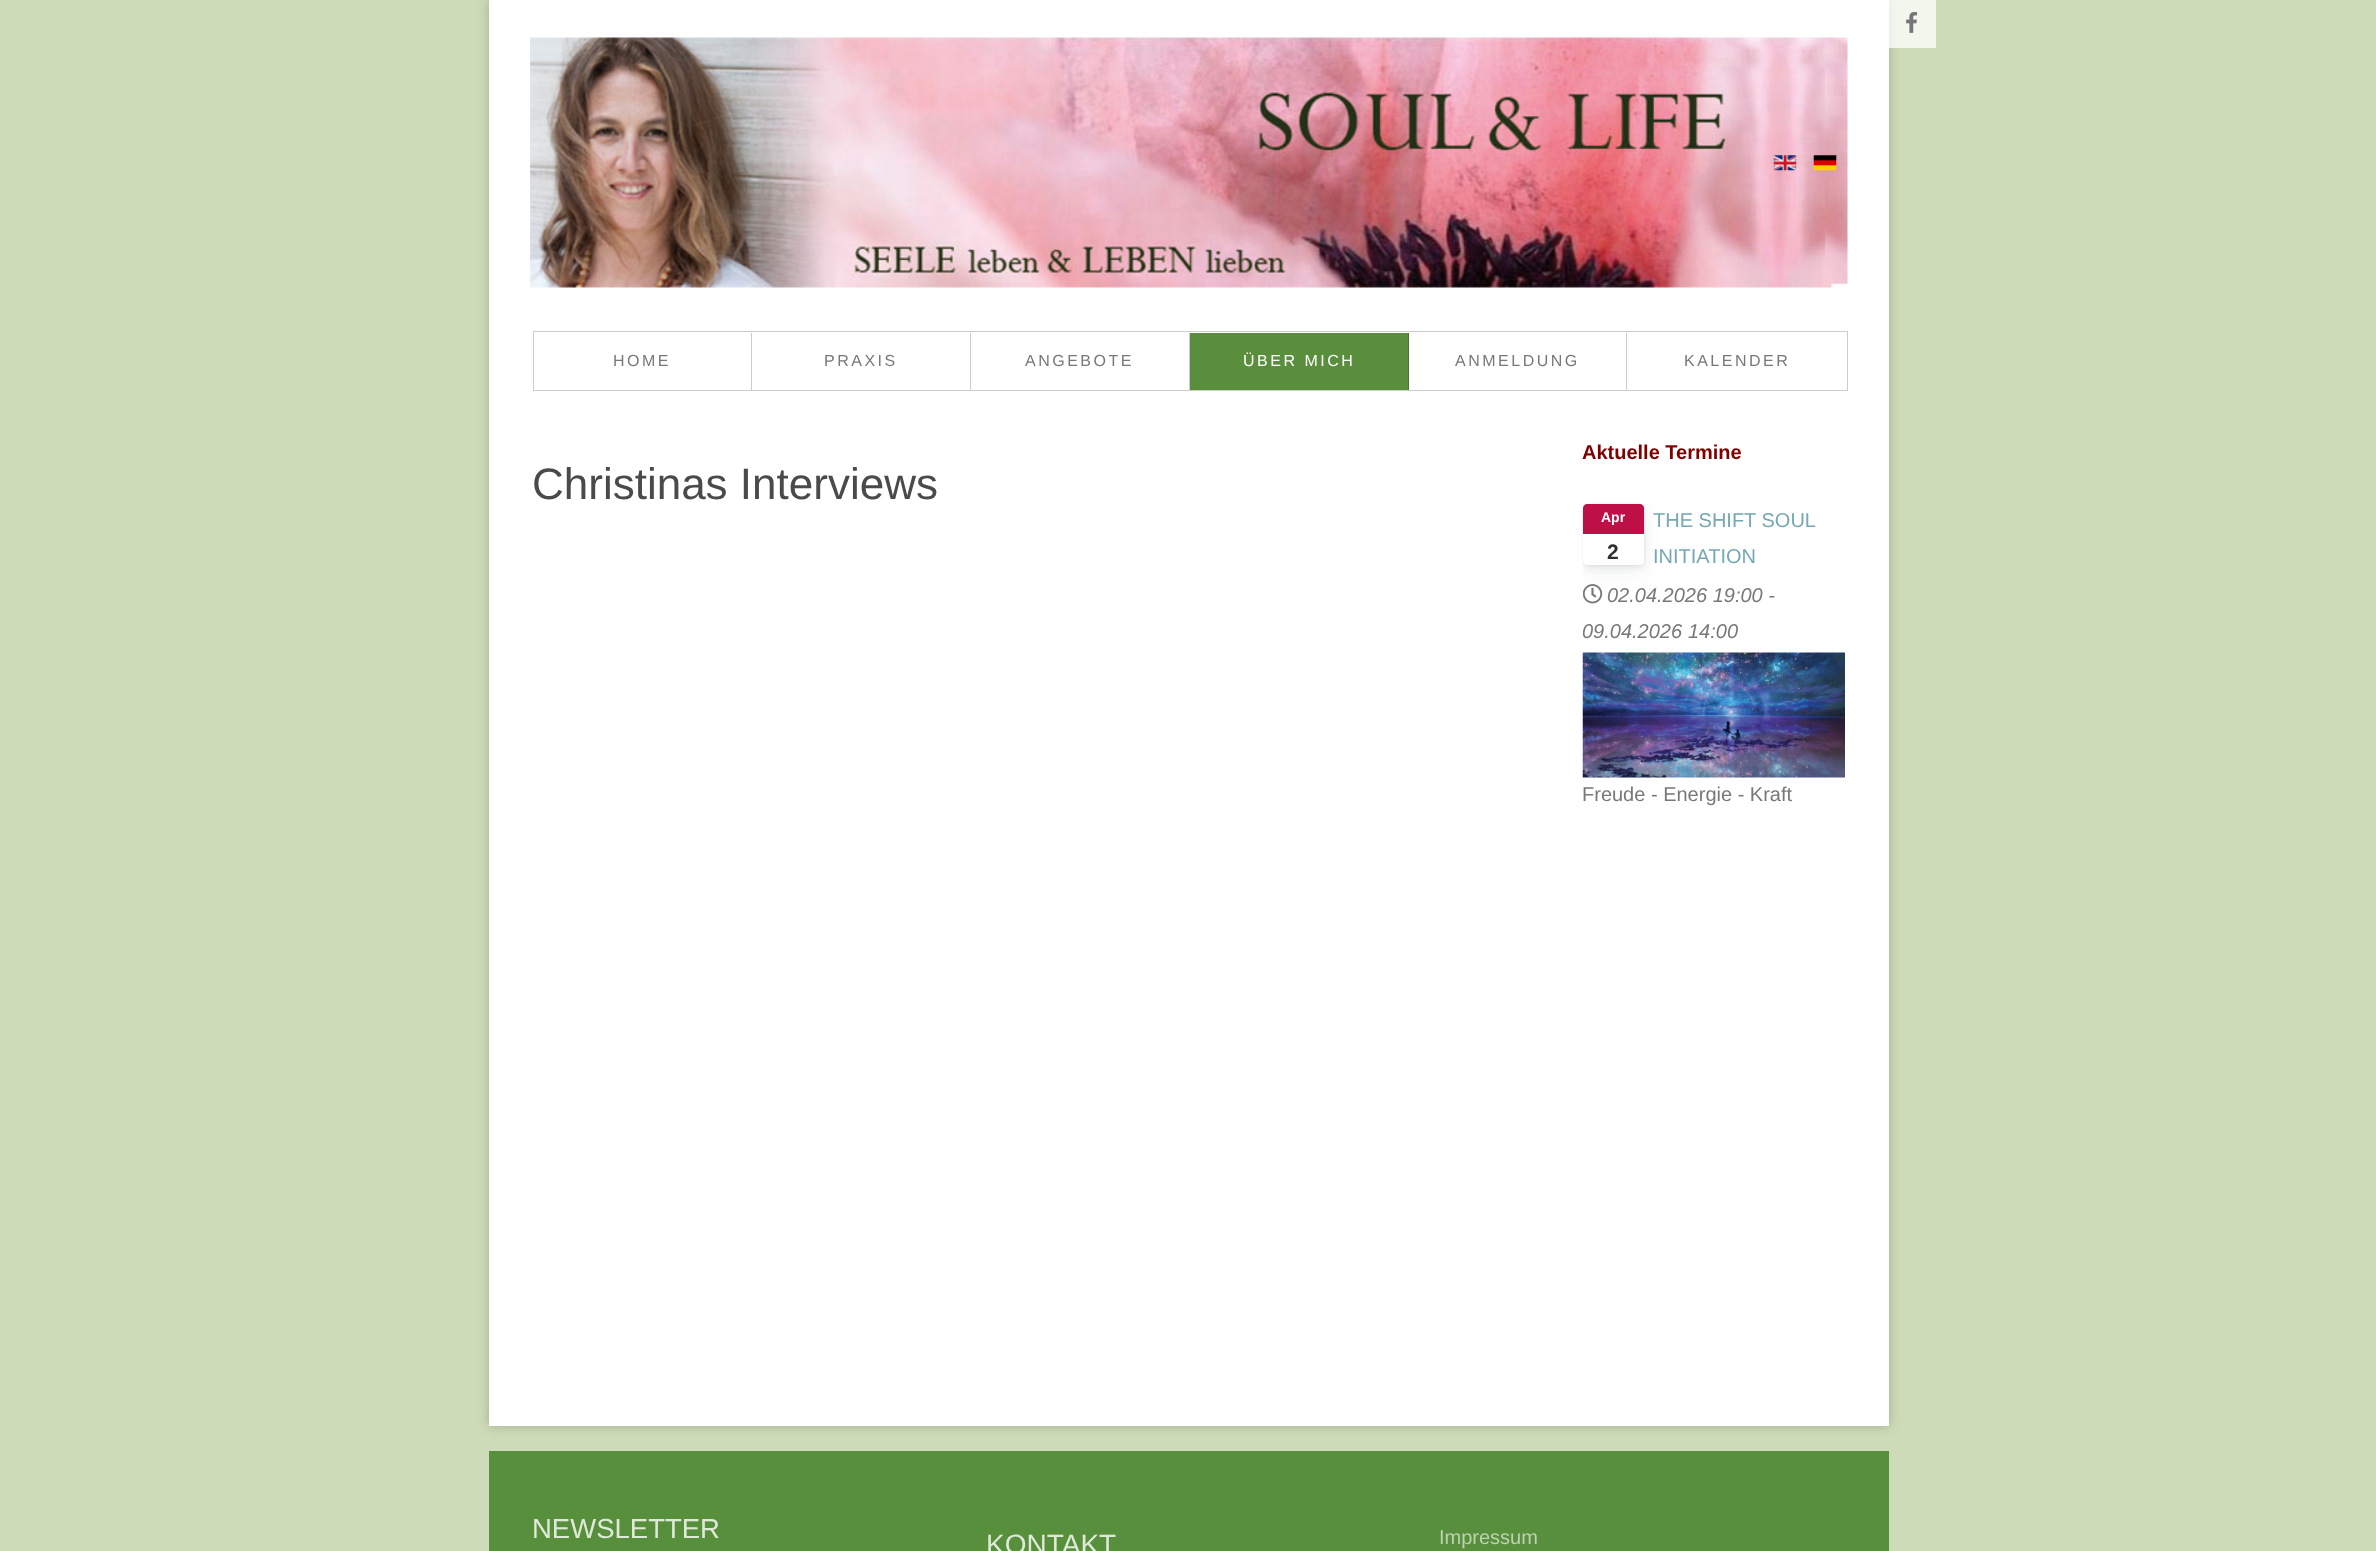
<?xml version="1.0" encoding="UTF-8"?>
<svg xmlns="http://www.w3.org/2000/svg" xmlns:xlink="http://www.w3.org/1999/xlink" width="2376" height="1551">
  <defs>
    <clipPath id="clip1"><rect x="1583" y="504" width="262" height="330" /></clipPath>
    <clipPath id="clip2"><rect x="1583" y="504" width="262" height="330" /></clipPath>
  </defs>
  <rect width="100%" height="100%" fill="#cddbb8" />
  <rect x="489" width="1400" height="1426" fill="#000000" fill-opacity="0.2" filter="blur(6px)" />
  <rect x="489" width="1400" height="1426" fill="#ffffff" />
  <rect x="1889" width="47" height="48" fill="#ffffff" fill-opacity="0.75" />
  <image x="1906" y="12" width="12" height="21" xlink:href="image1.png" />
  <image x="530" y="37" width="1318" height="251" xlink:href="image2.png" />
  <image x="1773" y="155" width="24" height="16" xlink:href="image3.png" />
  <image x="1813" y="155" width="24" height="16" xlink:href="image4.png" />
  <rect x="533.5" y="331.5" width="1314" height="59" fill="none" stroke="#cccccc" />
  <rect x="751" y="333" width="1" height="57" fill="#cccccc" />
  <rect x="970" y="333" width="1" height="57" fill="#cccccc" />
  <rect x="1189" y="333" width="1" height="57" fill="#cccccc" />
  <rect x="1190" y="333" width="218" height="57" fill="#598f3c" />
  <rect x="1408" y="333" width="1" height="57" fill="#477230" />
  <rect x="1626" y="333" width="1" height="57" fill="#cccccc" />
  <image x="1583" y="584" width="20" height="20" xlink:href="image5.png" />
  <g clip-path="url(#clip1)">
    <rect x="1583" y="510" width="61" height="61" rx="4" fill="#343a43" fill-opacity="0.08" filter="blur(9.5px)" />
    <rect x="1583" y="506" width="61" height="62" rx="4" fill="#343a43" fill-opacity="0.08" filter="blur(3px)" />
  </g>
  <rect x="1583" y="504" width="61" height="61" rx="4" fill="#343a43" fill-opacity="0.1" filter="blur(1px)" />
  <rect x="1583" y="504" width="61" height="61" rx="4" fill="#ffffff" />
  <path d="M 1583 531 v 3 h 61 v -27 v 24 z" fill="#bf0f47" />
  <path d="M 1587 504 h 53 c 2 0 4 2 4 4 v 23 h -61 v -23 c 0 -2 2 -4 4 -4 z" fill="#bf0f47" />
  <image x="1582" y="652" width="263" height="126" xlink:href="image6.png" />
  <rect x="489" y="1451" width="1400" height="100" fill="#588f3c" />
  <text x="613" y="366" style="font-family: Liberation Sans; font-size: 16px; letter-spacing: 2.5px; fill: #787878">HOME</text>
  <text x="824" y="366" style="font-family: Liberation Sans; font-size: 16px; letter-spacing: 2.5px; fill: #787878">PRAXIS</text>
  <text x="1025" y="366" style="font-family: Liberation Sans; font-size: 16px; letter-spacing: 2.5px; fill: #787878">ANGEBOTE</text>
  <text x="1243" y="366" style="font-family: Liberation Sans; font-size: 16px; letter-spacing: 2.5px; fill: #ffffff">ÜBER MICH</text>
  <text x="1455" y="366" style="font-family: Liberation Sans; font-size: 16px; letter-spacing: 2.5px; fill: #787878">ANMELDUNG</text>
  <text x="1684" y="366" style="font-family: Liberation Sans; font-size: 16px; letter-spacing: 2.5px; fill: #787878">KALENDER</text>
  <text x="532" y="499" style="font-family: Liberation Sans; font-size: 44px; fill: #4a4a4a">Christinas Interviews</text>
  <text x="1582" y="459" style="font-family: Liberation Sans; font-size: 20px; font-weight: bold; fill: #800000">Aktuelle Termine</text>
  <text x="1601" y="522" style="font-family: Liberation Sans; font-size: 14px; font-weight: bold; fill: #ffffff">Apr</text>
  <text x="1607" y="559" style="font-family: Liberation Sans; font-size: 21px; font-weight: bold; fill: #2f2f2f">2</text>
  <text x="1653" y="527" style="font-family: Liberation Sans; font-size: 20px; fill: #75a8b4">THE SHIFT SOUL</text>
  <text x="1653" y="563" style="font-family: Liberation Sans; font-size: 20px; fill: #75a8b4">INITIATION</text>
  <text x="1607" y="602" style="font-family: Liberation Sans; font-size: 20px; font-style: italic; fill: #787878">02.04.2026 19:00 -</text>
  <g clip-path="url(#clip2)">
    <text x="1582" y="638" style="font-family: Liberation Sans; font-size: 20px; font-style: italic; fill: #787878">09.04.2026</text>
  </g>
  <text x="1688" y="638" style="font-family: Liberation Sans; font-size: 20px; font-style: italic; fill: #787878">14:00</text>
  <text x="1582" y="801" style="font-family: Liberation Sans; font-size: 20px; fill: #787878">Freude - Energie - Kraft</text>
  <text x="532" y="1538" style="font-family: Liberation Sans; font-size: 27.5px; fill: #dee9d8">NEWSLETTER</text>
  <text x="986" y="1554" style="font-family: Liberation Sans; font-size: 28px; fill: #dee9d8">KONTAKT</text>
  <text x="1439" y="1544" style="font-family: Liberation Sans; font-size: 20px; fill: #bcd2b1">Impressum</text>
</svg>
